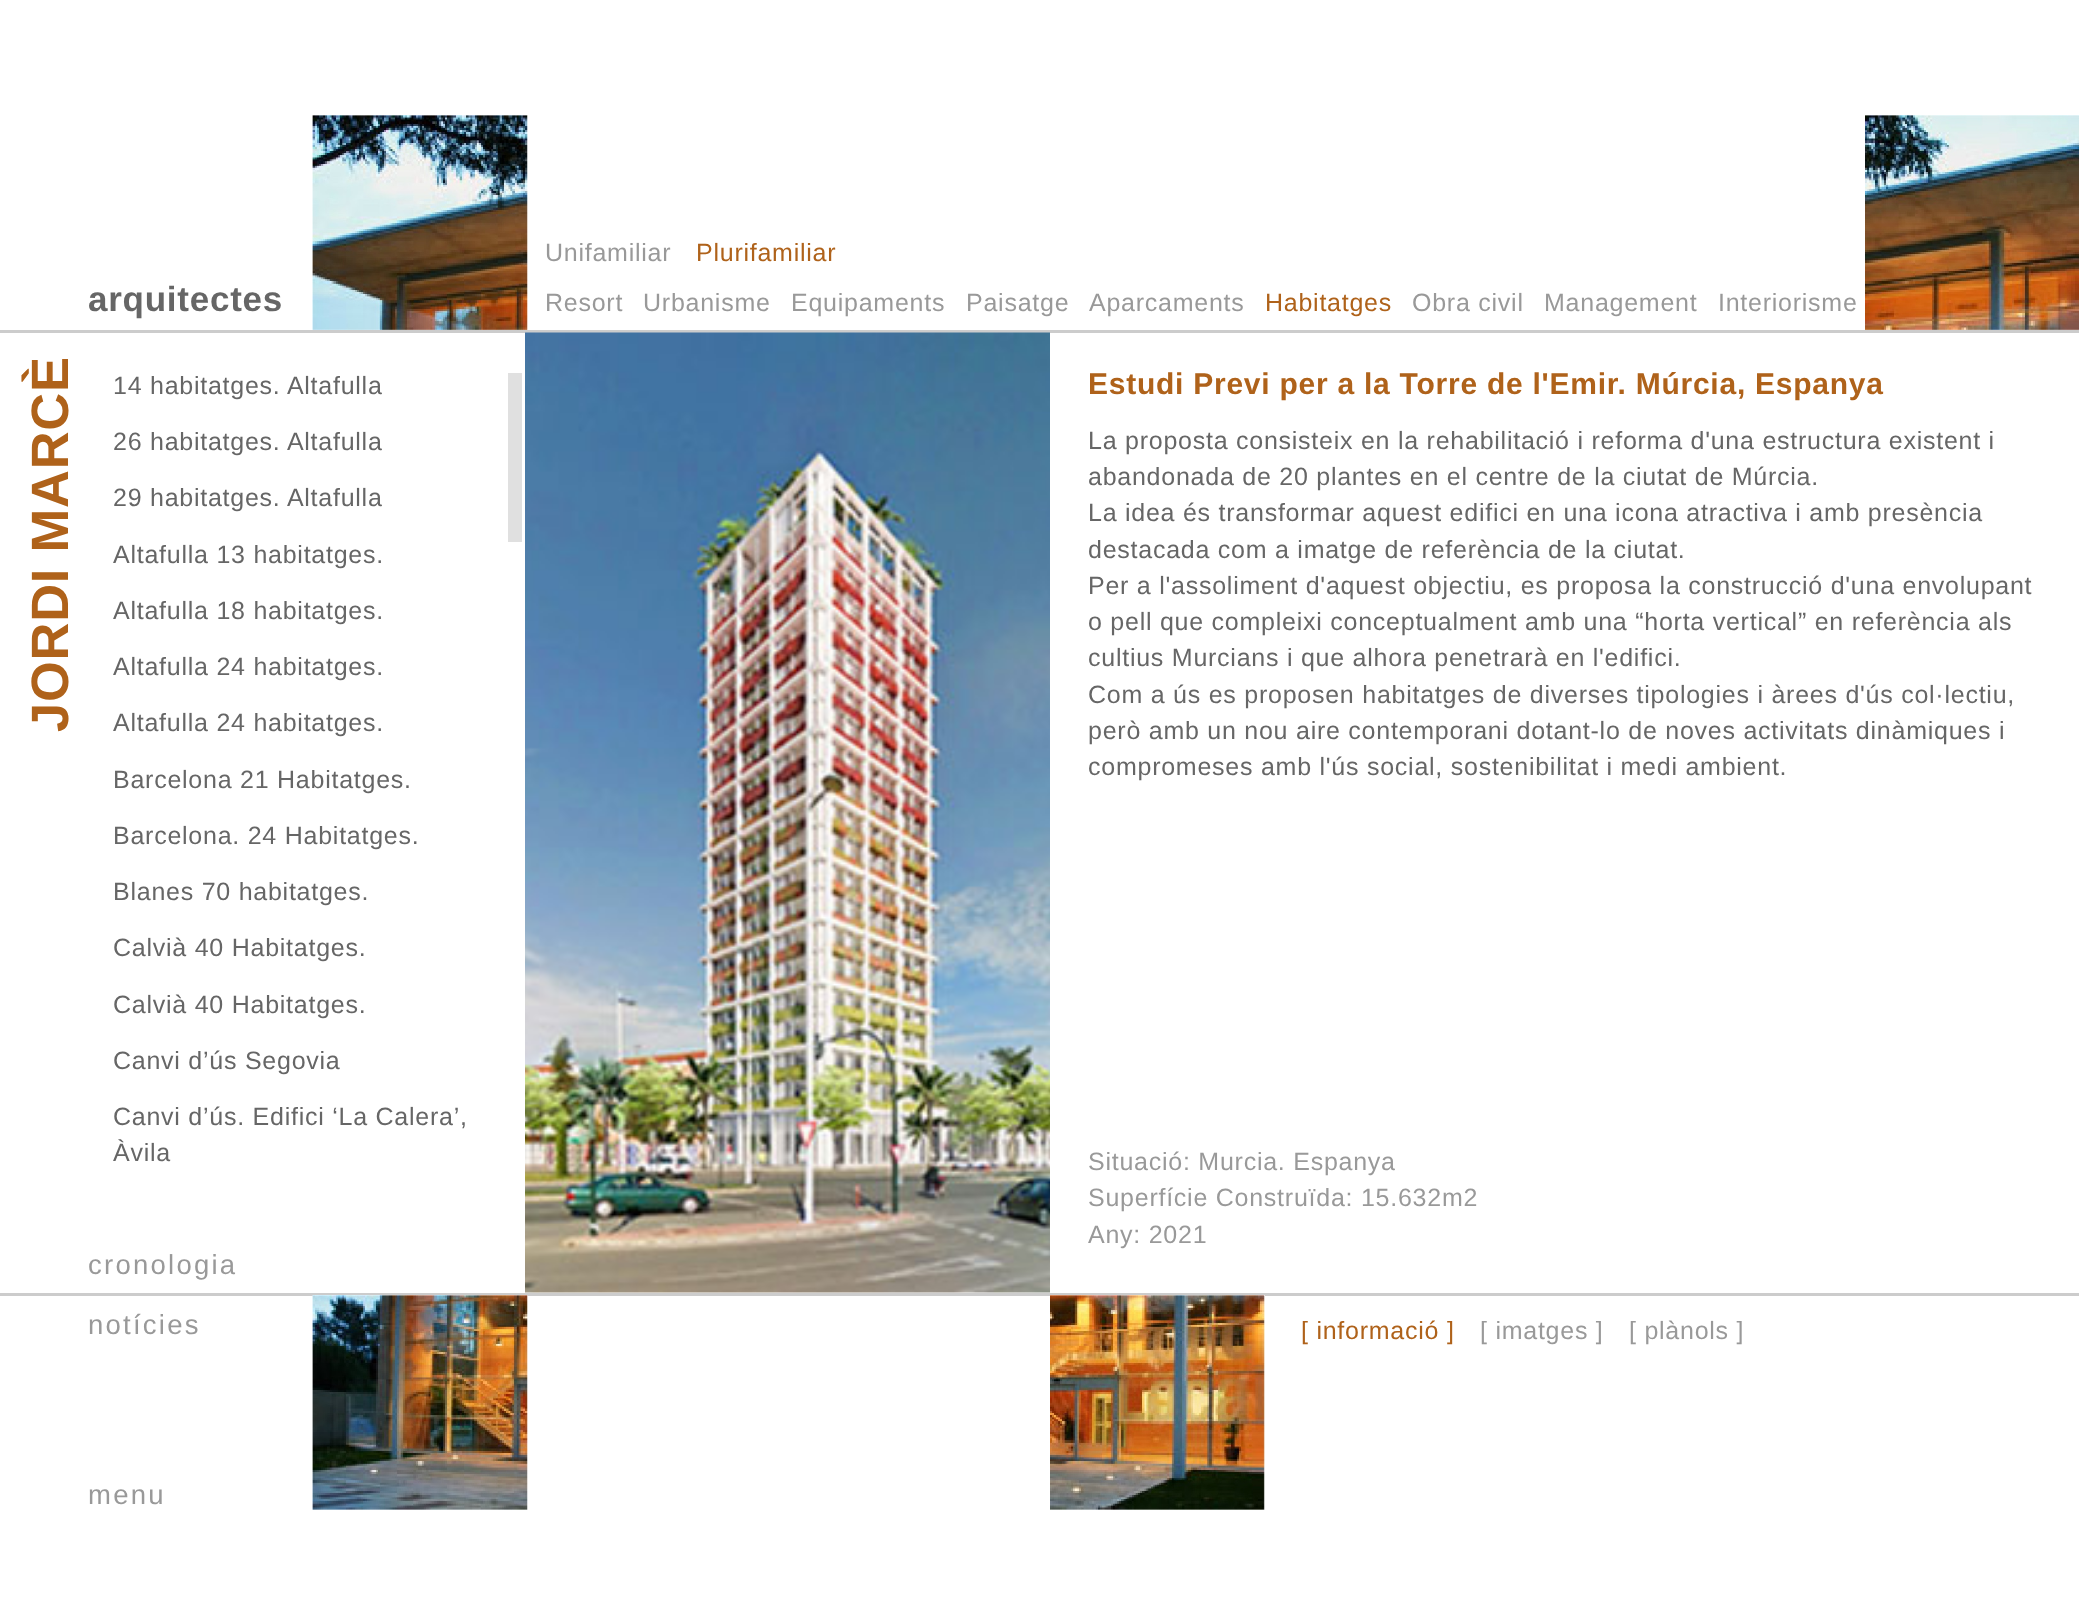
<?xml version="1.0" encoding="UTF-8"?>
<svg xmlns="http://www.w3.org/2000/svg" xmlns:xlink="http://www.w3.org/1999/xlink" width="2079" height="1617">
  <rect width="100%" height="100%" fill="#ffffff" />
  <image x="312" y="115" width="216" height="215" xlink:href="image1.png" />
  <image x="1865" y="115" width="214" height="215" xlink:href="image2.png" />
  <rect y="330" width="2079" height="3" fill="#cccccc" />
  <rect y="1293" width="2079" height="3" fill="#cccccc" />
  <image x="525" y="332" width="525" height="961" xlink:href="image3.png" />
  <image x="312" y="1295" width="216" height="215" xlink:href="image4.png" />
  <image x="1050" y="1295" width="215" height="215" xlink:href="image5.png" />
  <rect x="508" y="373" width="14" height="169" fill="#e0e0e0" />
  <text x="88" y="311" style="font-family: Liberation Sans; font-size: 35px; font-weight: bold; letter-spacing: 0.75px; fill: #666666">arquitectes</text>
  <text x="545" y="261" style="font-family: Liberation Sans; font-size: 25px; letter-spacing: 0.75px; fill: #999999">Unifamiliar</text>
  <text x="696" y="261" style="font-family: Liberation Sans; font-size: 25px; letter-spacing: 0.75px; fill: #af621a">Plurifamiliar</text>
  <text x="545" y="311" style="font-family: Liberation Sans; font-size: 25px; letter-spacing: 0.75px; fill: #999999">Resort</text>
  <text x="643" y="311" style="font-family: Liberation Sans; font-size: 25px; letter-spacing: 0.75px; fill: #999999">Urbanisme</text>
  <text x="791" y="311" style="font-family: Liberation Sans; font-size: 25px; letter-spacing: 0.75px; fill: #999999">Equipaments</text>
  <text x="966" y="311" style="font-family: Liberation Sans; font-size: 25px; letter-spacing: 0.75px; fill: #999999">Paisatge</text>
  <text x="1089" y="311" style="font-family: Liberation Sans; font-size: 25px; letter-spacing: 0.75px; fill: #999999">Aparcaments</text>
  <text x="1265" y="311" style="font-family: Liberation Sans; font-size: 25px; letter-spacing: 0.75px; fill: #af621a">Habitatges</text>
  <text x="1412" y="311" style="font-family: Liberation Sans; font-size: 25px; letter-spacing: 0.75px; fill: #999999">Obra civil</text>
  <text x="1544" y="311" style="font-family: Liberation Sans; font-size: 25px; letter-spacing: 0.75px; fill: #999999">Management</text>
  <text x="1718" y="311" style="font-family: Liberation Sans; font-size: 25px; letter-spacing: 0.75px; fill: #999999">Interiorisme</text>
  <text x="68" y="732" transform="rotate(-90 68 732)" style="font-family: Liberation Sans; font-size: 52.5px; font-weight: bold; letter-spacing: 0.75px; fill: #af621a">JORDI MARCÈ</text>
  <text x="113" y="394" style="font-family: Liberation Sans; font-size: 25px; letter-spacing: 0.75px; fill: #666666">14 habitatges. Altafulla</text>
  <text x="113" y="450" style="font-family: Liberation Sans; font-size: 25px; letter-spacing: 0.75px; fill: #666666">26 habitatges. Altafulla</text>
  <text x="113" y="506" style="font-family: Liberation Sans; font-size: 25px; letter-spacing: 0.75px; fill: #666666">29 habitatges. Altafulla</text>
  <text x="113" y="563" style="font-family: Liberation Sans; font-size: 25px; letter-spacing: 0.75px; fill: #666666">Altafulla 13 habitatges.</text>
  <text x="113" y="619" style="font-family: Liberation Sans; font-size: 25px; letter-spacing: 0.75px; fill: #666666">Altafulla 18 habitatges.</text>
  <text x="113" y="675" style="font-family: Liberation Sans; font-size: 25px; letter-spacing: 0.75px; fill: #666666">Altafulla 24 habitatges.</text>
  <text x="113" y="731" style="font-family: Liberation Sans; font-size: 25px; letter-spacing: 0.75px; fill: #666666">Altafulla 24 habitatges.</text>
  <text x="113" y="788" style="font-family: Liberation Sans; font-size: 25px; letter-spacing: 0.75px; fill: #666666">Barcelona 21 Habitatges.</text>
  <text x="113" y="844" style="font-family: Liberation Sans; font-size: 25px; letter-spacing: 0.75px; fill: #666666">Barcelona. 24 Habitatges.</text>
  <text x="113" y="900" style="font-family: Liberation Sans; font-size: 25px; letter-spacing: 0.75px; fill: #666666">Blanes 70 habitatges.</text>
  <text x="113" y="956" style="font-family: Liberation Sans; font-size: 25px; letter-spacing: 0.75px; fill: #666666">Calvià 40 Habitatges.</text>
  <text x="113" y="1013" style="font-family: Liberation Sans; font-size: 25px; letter-spacing: 0.75px; fill: #666666">Calvià 40 Habitatges.</text>
  <text x="113" y="1069" style="font-family: Liberation Sans; font-size: 25px; letter-spacing: 0.75px; fill: #666666">Canvi d’ús Segovia</text>
  <text x="113" y="1125" style="font-family: Liberation Sans; font-size: 25px; letter-spacing: 0.75px; fill: #666666">Canvi d’ús. Edifici ‘La Calera’,</text>
  <text x="113" y="1161" style="font-family: Liberation Sans; font-size: 25px; letter-spacing: 0.75px; fill: #666666">Àvila</text>
  <text x="1088" y="394" style="font-family: Liberation Sans; font-size: 30px; font-weight: bold; letter-spacing: 0.75px; fill: #af621a">Estudi Previ per a la Torre de l'Emir. Múrcia, Espanya</text>
  <text x="1088" y="449" style="font-family: Liberation Sans; font-size: 25px; letter-spacing: 0.75px; fill: #666666">La proposta consisteix en la rehabilitació i reforma d'una estructura existent i</text>
  <text x="1088" y="485" style="font-family: Liberation Sans; font-size: 25px; letter-spacing: 0.75px; fill: #666666">abandonada de 20 plantes en el centre de la ciutat de Múrcia.</text>
  <text x="1088" y="521" style="font-family: Liberation Sans; font-size: 25px; letter-spacing: 0.75px; fill: #666666">La idea és transformar aquest edifici en una icona atractiva i amb presència</text>
  <text x="1088" y="558" style="font-family: Liberation Sans; font-size: 25px; letter-spacing: 0.75px; fill: #666666">destacada com a imatge de referència de la ciutat.</text>
  <text x="1088" y="594" style="font-family: Liberation Sans; font-size: 25px; letter-spacing: 0.75px; fill: #666666">Per a l'assoliment d'aquest objectiu, es proposa la construcció d'una envolupant</text>
  <text x="1088" y="630" style="font-family: Liberation Sans; font-size: 25px; letter-spacing: 0.75px; fill: #666666">o pell que compleixi conceptualment amb una “horta vertical” en referència als</text>
  <text x="1088" y="666" style="font-family: Liberation Sans; font-size: 25px; letter-spacing: 0.75px; fill: #666666">cultius Murcians i que alhora penetrarà en l'edifici.</text>
  <text x="1088" y="703" style="font-family: Liberation Sans; font-size: 25px; letter-spacing: 0.75px; fill: #666666">Com a ús es proposen habitatges de diverses tipologies i àrees d'ús col·lectiu,</text>
  <text x="1088" y="739" style="font-family: Liberation Sans; font-size: 25px; letter-spacing: 0.75px; fill: #666666">però amb un nou aire contemporani dotant-lo de noves activitats dinàmiques i</text>
  <text x="1088" y="775" style="font-family: Liberation Sans; font-size: 25px; letter-spacing: 0.75px; fill: #666666">compromeses amb l'ús social, sostenibilitat i medi ambient.</text>
  <text x="1088" y="1170" style="font-family: Liberation Sans; font-size: 25px; letter-spacing: 0.75px; fill: #999999">Situació: Murcia. Espanya</text>
  <text x="1088" y="1206" style="font-family: Liberation Sans; font-size: 25px; letter-spacing: 0.75px; fill: #999999">Superfície Construïda: 15.632m2</text>
  <text x="1088" y="1243" style="font-family: Liberation Sans; font-size: 25px; letter-spacing: 0.75px; fill: #999999">Any: 2021</text>
  <text x="88" y="1274" style="font-family: Liberation Sans; font-size: 27.5px; letter-spacing: 2.25px; fill: #999999">cronologia</text>
  <text x="88" y="1334" style="font-family: Liberation Sans; font-size: 27.5px; letter-spacing: 2.25px; fill: #999999">notícies</text>
  <text x="1301" y="1339" style="font-family: Liberation Sans; font-size: 25px; letter-spacing: 0.75px; fill: #af621a">[ informació ]</text>
  <text x="1480" y="1339" style="font-family: Liberation Sans; font-size: 25px; letter-spacing: 0.75px; fill: #999999">[ imatges ]</text>
  <text x="1629" y="1339" style="font-family: Liberation Sans; font-size: 25px; letter-spacing: 0.75px; fill: #999999">[ plànols ]</text>
  <text x="88" y="1504" style="font-family: Liberation Sans; font-size: 27.5px; letter-spacing: 2.25px; fill: #999999">menu</text>
</svg>
